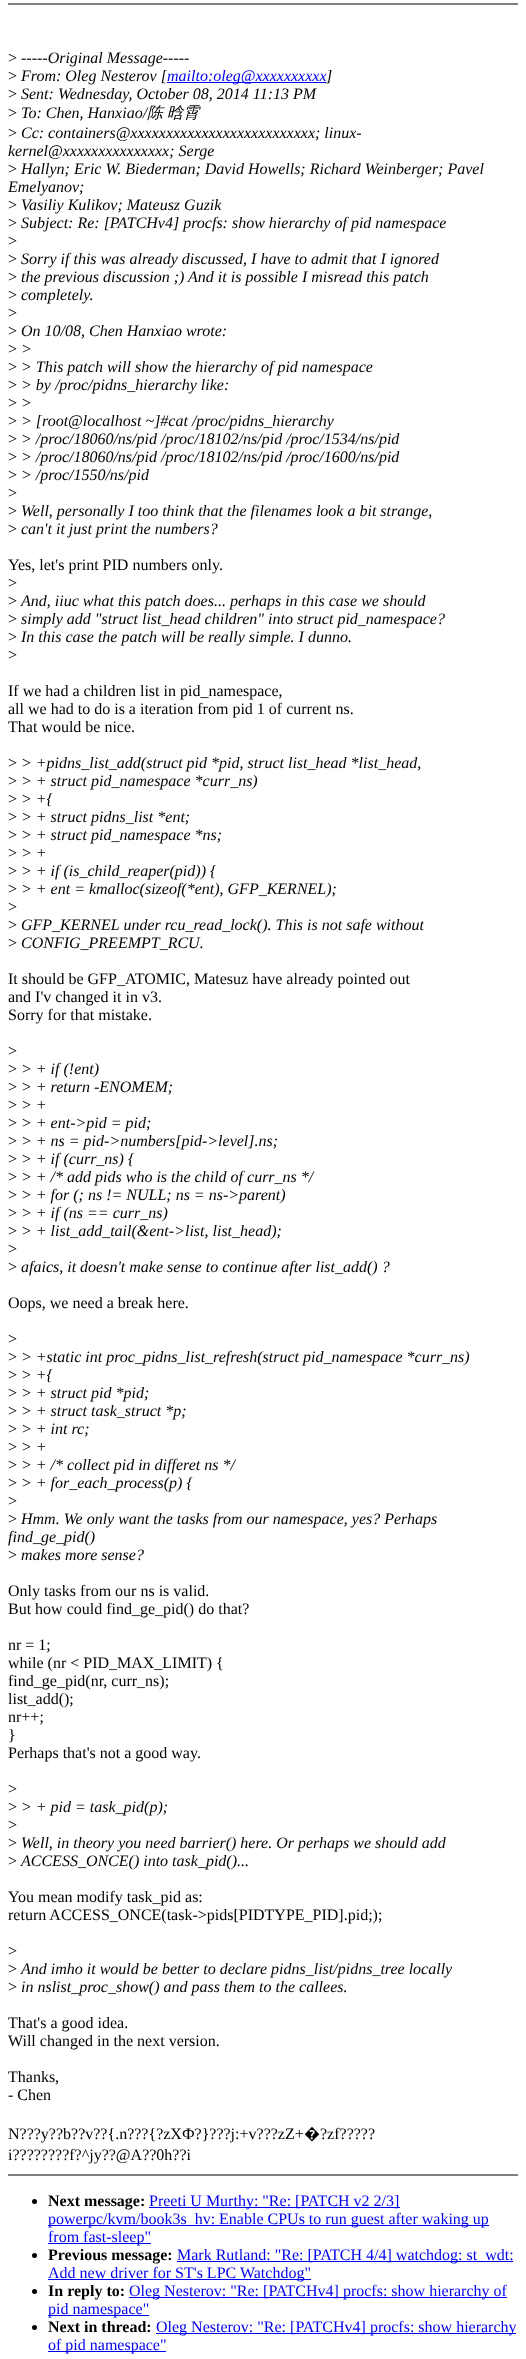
<?xml version="1.0" encoding="UTF-8"?>
<svg xmlns="http://www.w3.org/2000/svg" xmlns:xlink="http://www.w3.org/1999/xlink" width="526" height="2359">
  <rect width="100%" height="100%" fill="#ffffff" />
  <rect x="8" y="3" width="510" height="2" fill="#808080" />
  <rect x="8" y="2174" width="510" height="2" fill="#808080" />
  <circle cx="34.5" cy="2201.5" r="2.5" fill="#000000" />
  <rect x="149" y="2207" width="251" height="1" fill="#0000ee" />
  <rect x="48" y="2225" width="441" height="1" fill="#0000ee" />
  <rect x="48" y="2243" width="103" height="1" fill="#0000ee" />
  <circle cx="34.5" cy="2255.5" r="2.5" fill="#000000" />
  <rect x="177" y="2261" width="336" height="1" fill="#0000ee" />
  <rect x="48" y="2279" width="263" height="1" fill="#0000ee" />
  <circle cx="34.5" cy="2291.5" r="2.5" fill="#000000" />
  <rect x="129" y="2297" width="378" height="1" fill="#0000ee" />
  <rect x="48" y="2315" width="101" height="1" fill="#0000ee" />
  <circle cx="34.5" cy="2327.5" r="2.5" fill="#000000" />
  <rect x="156" y="2333" width="360" height="1" fill="#0000ee" />
  <rect x="48" y="2351" width="118" height="1" fill="#0000ee" />
  <text x="8" y="63" style="font-family: Liberation Serif; font-size: 16px; fill: #000000">&gt;</text>
  <text x="21" y="63" style="font-family: Liberation Serif; font-size: 16px; font-style: italic; fill: #000000">-----Original Message-----</text>
  <text x="8" y="81" style="font-family: Liberation Serif; font-size: 16px; fill: #000000">&gt;</text>
  <text x="21" y="81" style="font-family: Liberation Serif; font-size: 16px; font-style: italic; fill: #000000">From: Oleg Nesterov [</text>
  <rect x="167" y="82" width="159" height="1" fill="#0000ee" />
  <text x="167" y="81" style="font-family: Liberation Serif; font-size: 16px; font-style: italic; fill: #0000ee">mailto:oleg@xxxxxxxxxx</text>
  <text x="326" y="81" style="font-family: Liberation Serif; font-size: 16px; font-style: italic; fill: #000000">]</text>
  <text x="8" y="99" style="font-family: Liberation Serif; font-size: 16px; fill: #000000">&gt;</text>
  <text x="21" y="99" style="font-family: Liberation Serif; font-size: 16px; font-style: italic; fill: #000000">Sent: Wednesday, October 08, 2014 11:13 PM</text>
  <text x="8" y="118" style="font-family: Liberation Serif; font-size: 16px; fill: #000000">&gt;</text>
  <text x="21" y="118" style="font-family: Liberation Serif; font-size: 16px; font-style: italic; fill: #000000">To: Chen, Hanxiao/</text>
  <text x="147" y="118" style="font-family: WenQuanYi Zen Hei; font-size: 16px; font-weight: 500; font-style: italic; fill: #000000">陈</text>
  <text x="167" y="118" style="font-family: WenQuanYi Zen Hei; font-size: 16px; font-weight: 500; font-style: italic; fill: #000000">晗霄</text>
  <text x="8" y="138" style="font-family: Liberation Serif; font-size: 16px; fill: #000000">&gt;</text>
  <text x="21" y="138" style="font-family: Liberation Serif; font-size: 16px; font-style: italic; fill: #000000">Cc: containers@xxxxxxxxxxxxxxxxxxxxxxxxxx; linux-</text>
  <text x="8" y="156" style="font-family: Liberation Serif; font-size: 16px; font-style: italic; fill: #000000">kernel@xxxxxxxxxxxxxxx; Serge</text>
  <text x="8" y="174" style="font-family: Liberation Serif; font-size: 16px; fill: #000000">&gt;</text>
  <text x="21" y="174" style="font-family: Liberation Serif; font-size: 16px; font-style: italic; fill: #000000">Hallyn; Eric W. Biederman; David Howells; Richard Weinberger; Pavel</text>
  <text x="8" y="192" style="font-family: Liberation Serif; font-size: 16px; font-style: italic; fill: #000000">Emelyanov;</text>
  <text x="8" y="210" style="font-family: Liberation Serif; font-size: 16px; fill: #000000">&gt;</text>
  <text x="21" y="210" style="font-family: Liberation Serif; font-size: 16px; font-style: italic; fill: #000000">Vasiliy Kulikov; Mateusz Guzik</text>
  <text x="8" y="228" style="font-family: Liberation Serif; font-size: 16px; fill: #000000">&gt;</text>
  <text x="21" y="228" style="font-family: Liberation Serif; font-size: 16px; font-style: italic; fill: #000000">Subject: Re: [PATCHv4] procfs: show hierarchy of pid namespace</text>
  <text x="8" y="246" style="font-family: Liberation Serif; font-size: 16px; fill: #000000">&gt;</text>
  <text x="8" y="264" style="font-family: Liberation Serif; font-size: 16px; fill: #000000">&gt;</text>
  <text x="21" y="264" style="font-family: Liberation Serif; font-size: 16px; font-style: italic; fill: #000000">Sorry if this was already discussed, I have to admit that I ignored</text>
  <text x="8" y="282" style="font-family: Liberation Serif; font-size: 16px; fill: #000000">&gt;</text>
  <text x="21" y="282" style="font-family: Liberation Serif; font-size: 16px; font-style: italic; fill: #000000">the previous discussion ;) And it is possible I misread this patch</text>
  <text x="8" y="300" style="font-family: Liberation Serif; font-size: 16px; fill: #000000">&gt;</text>
  <text x="21" y="300" style="font-family: Liberation Serif; font-size: 16px; font-style: italic; fill: #000000">completely.</text>
  <text x="8" y="318" style="font-family: Liberation Serif; font-size: 16px; fill: #000000">&gt;</text>
  <text x="8" y="336" style="font-family: Liberation Serif; font-size: 16px; fill: #000000">&gt;</text>
  <text x="21" y="336" style="font-family: Liberation Serif; font-size: 16px; font-style: italic; fill: #000000">On 10/08, Chen Hanxiao wrote:</text>
  <text x="8" y="354" style="font-family: Liberation Serif; font-size: 16px; fill: #000000">&gt;</text>
  <text x="21" y="354" style="font-family: Liberation Serif; font-size: 16px; font-style: italic; fill: #000000">&gt;</text>
  <text x="8" y="372" style="font-family: Liberation Serif; font-size: 16px; fill: #000000">&gt;</text>
  <text x="21" y="372" style="font-family: Liberation Serif; font-size: 16px; font-style: italic; fill: #000000">&gt; This patch will show the hierarchy of pid namespace</text>
  <text x="8" y="390" style="font-family: Liberation Serif; font-size: 16px; fill: #000000">&gt;</text>
  <text x="21" y="390" style="font-family: Liberation Serif; font-size: 16px; font-style: italic; fill: #000000">&gt; by /proc/pidns_hierarchy like:</text>
  <text x="8" y="408" style="font-family: Liberation Serif; font-size: 16px; fill: #000000">&gt;</text>
  <text x="21" y="408" style="font-family: Liberation Serif; font-size: 16px; font-style: italic; fill: #000000">&gt;</text>
  <text x="8" y="426" style="font-family: Liberation Serif; font-size: 16px; fill: #000000">&gt;</text>
  <text x="21" y="426" style="font-family: Liberation Serif; font-size: 16px; font-style: italic; fill: #000000">&gt; [root@localhost ~]#cat /proc/pidns_hierarchy</text>
  <text x="8" y="444" style="font-family: Liberation Serif; font-size: 16px; fill: #000000">&gt;</text>
  <text x="21" y="444" style="font-family: Liberation Serif; font-size: 16px; font-style: italic; fill: #000000">&gt; /proc/18060/ns/pid /proc/18102/ns/pid /proc/1534/ns/pid</text>
  <text x="8" y="462" style="font-family: Liberation Serif; font-size: 16px; fill: #000000">&gt;</text>
  <text x="21" y="462" style="font-family: Liberation Serif; font-size: 16px; font-style: italic; fill: #000000">&gt; /proc/18060/ns/pid /proc/18102/ns/pid /proc/1600/ns/pid</text>
  <text x="8" y="480" style="font-family: Liberation Serif; font-size: 16px; fill: #000000">&gt;</text>
  <text x="21" y="480" style="font-family: Liberation Serif; font-size: 16px; font-style: italic; fill: #000000">&gt; /proc/1550/ns/pid</text>
  <text x="8" y="498" style="font-family: Liberation Serif; font-size: 16px; fill: #000000">&gt;</text>
  <text x="8" y="516" style="font-family: Liberation Serif; font-size: 16px; fill: #000000">&gt;</text>
  <text x="21" y="516" style="font-family: Liberation Serif; font-size: 16px; font-style: italic; fill: #000000">Well, personally I too think that the filenames look a bit strange,</text>
  <text x="8" y="534" style="font-family: Liberation Serif; font-size: 16px; fill: #000000">&gt;</text>
  <text x="21" y="534" style="font-family: Liberation Serif; font-size: 16px; font-style: italic; fill: #000000">can't it just print the numbers?</text>
  <text x="8" y="570" style="font-family: Liberation Serif; font-size: 16px; fill: #000000">Yes, let's print PID numbers only.</text>
  <text x="8" y="588" style="font-family: Liberation Serif; font-size: 16px; fill: #000000">&gt;</text>
  <text x="8" y="606" style="font-family: Liberation Serif; font-size: 16px; fill: #000000">&gt;</text>
  <text x="21" y="606" style="font-family: Liberation Serif; font-size: 16px; font-style: italic; fill: #000000">And, iiuc what this patch does... perhaps in this case we should</text>
  <text x="8" y="624" style="font-family: Liberation Serif; font-size: 16px; fill: #000000">&gt;</text>
  <text x="21" y="624" style="font-family: Liberation Serif; font-size: 16px; font-style: italic; fill: #000000">simply add "struct list_head children" into struct pid_namespace?</text>
  <text x="8" y="642" style="font-family: Liberation Serif; font-size: 16px; fill: #000000">&gt;</text>
  <text x="21" y="642" style="font-family: Liberation Serif; font-size: 16px; font-style: italic; fill: #000000">In this case the patch will be really simple. I dunno.</text>
  <text x="8" y="660" style="font-family: Liberation Serif; font-size: 16px; fill: #000000">&gt;</text>
  <text x="8" y="696" style="font-family: Liberation Serif; font-size: 16px; fill: #000000">If we had a children list in pid_namespace,</text>
  <text x="8" y="714" style="font-family: Liberation Serif; font-size: 16px; fill: #000000">all we had to do is a iteration from pid 1 of current ns.</text>
  <text x="8" y="732" style="font-family: Liberation Serif; font-size: 16px; fill: #000000">That would be nice.</text>
  <text x="8" y="768" style="font-family: Liberation Serif; font-size: 16px; fill: #000000">&gt;</text>
  <text x="21" y="768" style="font-family: Liberation Serif; font-size: 16px; font-style: italic; fill: #000000">&gt; +pidns_list_add(struct pid *pid, struct list_head *list_head,</text>
  <text x="8" y="786" style="font-family: Liberation Serif; font-size: 16px; fill: #000000">&gt;</text>
  <text x="21" y="786" style="font-family: Liberation Serif; font-size: 16px; font-style: italic; fill: #000000">&gt; + struct pid_namespace *curr_ns)</text>
  <text x="8" y="804" style="font-family: Liberation Serif; font-size: 16px; fill: #000000">&gt;</text>
  <text x="21" y="804" style="font-family: Liberation Serif; font-size: 16px; font-style: italic; fill: #000000">&gt; +{</text>
  <text x="8" y="822" style="font-family: Liberation Serif; font-size: 16px; fill: #000000">&gt;</text>
  <text x="21" y="822" style="font-family: Liberation Serif; font-size: 16px; font-style: italic; fill: #000000">&gt; + struct pidns_list *ent;</text>
  <text x="8" y="840" style="font-family: Liberation Serif; font-size: 16px; fill: #000000">&gt;</text>
  <text x="21" y="840" style="font-family: Liberation Serif; font-size: 16px; font-style: italic; fill: #000000">&gt; + struct pid_namespace *ns;</text>
  <text x="8" y="858" style="font-family: Liberation Serif; font-size: 16px; fill: #000000">&gt;</text>
  <text x="21" y="858" style="font-family: Liberation Serif; font-size: 16px; font-style: italic; fill: #000000">&gt; +</text>
  <text x="8" y="876" style="font-family: Liberation Serif; font-size: 16px; fill: #000000">&gt;</text>
  <text x="21" y="876" style="font-family: Liberation Serif; font-size: 16px; font-style: italic; fill: #000000">&gt; + if (is_child_reaper(pid)) {</text>
  <text x="8" y="894" style="font-family: Liberation Serif; font-size: 16px; fill: #000000">&gt;</text>
  <text x="21" y="894" style="font-family: Liberation Serif; font-size: 16px; font-style: italic; fill: #000000">&gt; + ent = kmalloc(sizeof(*ent), GFP_KERNEL);</text>
  <text x="8" y="912" style="font-family: Liberation Serif; font-size: 16px; fill: #000000">&gt;</text>
  <text x="8" y="930" style="font-family: Liberation Serif; font-size: 16px; fill: #000000">&gt;</text>
  <text x="21" y="930" style="font-family: Liberation Serif; font-size: 16px; font-style: italic; fill: #000000">GFP_KERNEL under rcu_read_lock(). This is not safe without</text>
  <text x="8" y="948" style="font-family: Liberation Serif; font-size: 16px; fill: #000000">&gt;</text>
  <text x="21" y="948" style="font-family: Liberation Serif; font-size: 16px; font-style: italic; fill: #000000">CONFIG_PREEMPT_RCU.</text>
  <text x="8" y="984" style="font-family: Liberation Serif; font-size: 16px; fill: #000000">It should be GFP_ATOMIC, Matesuz have already pointed out</text>
  <text x="8" y="1002" style="font-family: Liberation Serif; font-size: 16px; fill: #000000">and I'v changed it in v3.</text>
  <text x="8" y="1020" style="font-family: Liberation Serif; font-size: 16px; fill: #000000">Sorry for that mistake.</text>
  <text x="8" y="1056" style="font-family: Liberation Serif; font-size: 16px; fill: #000000">&gt;</text>
  <text x="8" y="1074" style="font-family: Liberation Serif; font-size: 16px; fill: #000000">&gt;</text>
  <text x="21" y="1074" style="font-family: Liberation Serif; font-size: 16px; font-style: italic; fill: #000000">&gt; + if (!ent)</text>
  <text x="8" y="1092" style="font-family: Liberation Serif; font-size: 16px; fill: #000000">&gt;</text>
  <text x="21" y="1092" style="font-family: Liberation Serif; font-size: 16px; font-style: italic; fill: #000000">&gt; + return -ENOMEM;</text>
  <text x="8" y="1110" style="font-family: Liberation Serif; font-size: 16px; fill: #000000">&gt;</text>
  <text x="21" y="1110" style="font-family: Liberation Serif; font-size: 16px; font-style: italic; fill: #000000">&gt; +</text>
  <text x="8" y="1128" style="font-family: Liberation Serif; font-size: 16px; fill: #000000">&gt;</text>
  <text x="21" y="1128" style="font-family: Liberation Serif; font-size: 16px; font-style: italic; fill: #000000">&gt; + ent-&gt;pid = pid;</text>
  <text x="8" y="1146" style="font-family: Liberation Serif; font-size: 16px; fill: #000000">&gt;</text>
  <text x="21" y="1146" style="font-family: Liberation Serif; font-size: 16px; font-style: italic; fill: #000000">&gt; + ns = pid-&gt;numbers[pid-&gt;level].ns;</text>
  <text x="8" y="1164" style="font-family: Liberation Serif; font-size: 16px; fill: #000000">&gt;</text>
  <text x="21" y="1164" style="font-family: Liberation Serif; font-size: 16px; font-style: italic; fill: #000000">&gt; + if (curr_ns) {</text>
  <text x="8" y="1182" style="font-family: Liberation Serif; font-size: 16px; fill: #000000">&gt;</text>
  <text x="21" y="1182" style="font-family: Liberation Serif; font-size: 16px; font-style: italic; fill: #000000">&gt; + /* add pids who is the child of curr_ns */</text>
  <text x="8" y="1200" style="font-family: Liberation Serif; font-size: 16px; fill: #000000">&gt;</text>
  <text x="21" y="1200" style="font-family: Liberation Serif; font-size: 16px; font-style: italic; fill: #000000">&gt; + for (; ns != NULL; ns = ns-&gt;parent)</text>
  <text x="8" y="1218" style="font-family: Liberation Serif; font-size: 16px; fill: #000000">&gt;</text>
  <text x="21" y="1218" style="font-family: Liberation Serif; font-size: 16px; font-style: italic; fill: #000000">&gt; + if (ns == curr_ns)</text>
  <text x="8" y="1236" style="font-family: Liberation Serif; font-size: 16px; fill: #000000">&gt;</text>
  <text x="21" y="1236" style="font-family: Liberation Serif; font-size: 16px; font-style: italic; fill: #000000">&gt; + list_add_tail(&amp;ent-&gt;list, list_head);</text>
  <text x="8" y="1254" style="font-family: Liberation Serif; font-size: 16px; fill: #000000">&gt;</text>
  <text x="8" y="1272" style="font-family: Liberation Serif; font-size: 16px; fill: #000000">&gt;</text>
  <text x="21" y="1272" style="font-family: Liberation Serif; font-size: 16px; font-style: italic; fill: #000000">afaics, it doesn't make sense to continue after list_add() ?</text>
  <text x="8" y="1308" style="font-family: Liberation Serif; font-size: 16px; fill: #000000">Oops, we need a break here.</text>
  <text x="8" y="1344" style="font-family: Liberation Serif; font-size: 16px; fill: #000000">&gt;</text>
  <text x="8" y="1362" style="font-family: Liberation Serif; font-size: 16px; fill: #000000">&gt;</text>
  <text x="21" y="1362" style="font-family: Liberation Serif; font-size: 16px; font-style: italic; fill: #000000">&gt; +static int proc_pidns_list_refresh(struct pid_namespace *curr_ns)</text>
  <text x="8" y="1380" style="font-family: Liberation Serif; font-size: 16px; fill: #000000">&gt;</text>
  <text x="21" y="1380" style="font-family: Liberation Serif; font-size: 16px; font-style: italic; fill: #000000">&gt; +{</text>
  <text x="8" y="1398" style="font-family: Liberation Serif; font-size: 16px; fill: #000000">&gt;</text>
  <text x="21" y="1398" style="font-family: Liberation Serif; font-size: 16px; font-style: italic; fill: #000000">&gt; + struct pid *pid;</text>
  <text x="8" y="1416" style="font-family: Liberation Serif; font-size: 16px; fill: #000000">&gt;</text>
  <text x="21" y="1416" style="font-family: Liberation Serif; font-size: 16px; font-style: italic; fill: #000000">&gt; + struct task_struct *p;</text>
  <text x="8" y="1434" style="font-family: Liberation Serif; font-size: 16px; fill: #000000">&gt;</text>
  <text x="21" y="1434" style="font-family: Liberation Serif; font-size: 16px; font-style: italic; fill: #000000">&gt; + int rc;</text>
  <text x="8" y="1452" style="font-family: Liberation Serif; font-size: 16px; fill: #000000">&gt;</text>
  <text x="21" y="1452" style="font-family: Liberation Serif; font-size: 16px; font-style: italic; fill: #000000">&gt; +</text>
  <text x="8" y="1470" style="font-family: Liberation Serif; font-size: 16px; fill: #000000">&gt;</text>
  <text x="21" y="1470" style="font-family: Liberation Serif; font-size: 16px; font-style: italic; fill: #000000">&gt; + /* collect pid in differet ns */</text>
  <text x="8" y="1488" style="font-family: Liberation Serif; font-size: 16px; fill: #000000">&gt;</text>
  <text x="21" y="1488" style="font-family: Liberation Serif; font-size: 16px; font-style: italic; fill: #000000">&gt; + for_each_process(p) {</text>
  <text x="8" y="1506" style="font-family: Liberation Serif; font-size: 16px; fill: #000000">&gt;</text>
  <text x="8" y="1524" style="font-family: Liberation Serif; font-size: 16px; fill: #000000">&gt;</text>
  <text x="21" y="1524" style="font-family: Liberation Serif; font-size: 16px; font-style: italic; fill: #000000">Hmm. We only want the tasks from our namespace, yes? Perhaps</text>
  <text x="8" y="1542" style="font-family: Liberation Serif; font-size: 16px; font-style: italic; fill: #000000">find_ge_pid()</text>
  <text x="8" y="1560" style="font-family: Liberation Serif; font-size: 16px; fill: #000000">&gt;</text>
  <text x="21" y="1560" style="font-family: Liberation Serif; font-size: 16px; font-style: italic; fill: #000000">makes more sense?</text>
  <text x="8" y="1596" style="font-family: Liberation Serif; font-size: 16px; fill: #000000">Only tasks from our ns is valid.</text>
  <text x="8" y="1614" style="font-family: Liberation Serif; font-size: 16px; fill: #000000">But how could find_ge_pid() do that?</text>
  <text x="8" y="1650" style="font-family: Liberation Serif; font-size: 16px; fill: #000000">nr = 1;</text>
  <text x="8" y="1668" style="font-family: Liberation Serif; font-size: 16px; fill: #000000">while (nr &lt; PID_MAX_LIMIT) {</text>
  <text x="8" y="1686" style="font-family: Liberation Serif; font-size: 16px; fill: #000000">find_ge_pid(nr, curr_ns);</text>
  <text x="8" y="1704" style="font-family: Liberation Serif; font-size: 16px; fill: #000000">list_add();</text>
  <text x="8" y="1722" style="font-family: Liberation Serif; font-size: 16px; fill: #000000">nr++;</text>
  <text x="8" y="1740" style="font-family: Liberation Serif; font-size: 16px; fill: #000000">}</text>
  <text x="8" y="1758" style="font-family: Liberation Serif; font-size: 16px; fill: #000000">Perhaps that's not a good way.</text>
  <text x="8" y="1794" style="font-family: Liberation Serif; font-size: 16px; fill: #000000">&gt;</text>
  <text x="8" y="1812" style="font-family: Liberation Serif; font-size: 16px; fill: #000000">&gt;</text>
  <text x="21" y="1812" style="font-family: Liberation Serif; font-size: 16px; font-style: italic; fill: #000000">&gt; + pid = task_pid(p);</text>
  <text x="8" y="1830" style="font-family: Liberation Serif; font-size: 16px; fill: #000000">&gt;</text>
  <text x="8" y="1848" style="font-family: Liberation Serif; font-size: 16px; fill: #000000">&gt;</text>
  <text x="21" y="1848" style="font-family: Liberation Serif; font-size: 16px; font-style: italic; fill: #000000">Well, in theory you need barrier() here. Or perhaps we should add</text>
  <text x="8" y="1866" style="font-family: Liberation Serif; font-size: 16px; fill: #000000">&gt;</text>
  <text x="21" y="1866" style="font-family: Liberation Serif; font-size: 16px; font-style: italic; fill: #000000">ACCESS_ONCE() into task_pid()...</text>
  <text x="8" y="1902" style="font-family: Liberation Serif; font-size: 16px; fill: #000000">You mean modify task_pid as:</text>
  <text x="8" y="1920" style="font-family: Liberation Serif; font-size: 16px; fill: #000000">return ACCESS_ONCE(task-&gt;pids[PIDTYPE_PID].pid;);</text>
  <text x="8" y="1956" style="font-family: Liberation Serif; font-size: 16px; fill: #000000">&gt;</text>
  <text x="8" y="1974" style="font-family: Liberation Serif; font-size: 16px; fill: #000000">&gt;</text>
  <text x="21" y="1974" style="font-family: Liberation Serif; font-size: 16px; font-style: italic; fill: #000000">And imho it would be better to declare pidns_list/pidns_tree locally</text>
  <text x="8" y="1992" style="font-family: Liberation Serif; font-size: 16px; fill: #000000">&gt;</text>
  <text x="21" y="1992" style="font-family: Liberation Serif; font-size: 16px; font-style: italic; fill: #000000">in nslist_proc_show() and pass them to the callees.</text>
  <text x="8" y="2028" style="font-family: Liberation Serif; font-size: 16px; fill: #000000">That's a good idea.</text>
  <text x="8" y="2046" style="font-family: Liberation Serif; font-size: 16px; fill: #000000">Will changed in the next version.</text>
  <text x="8" y="2082" style="font-family: Liberation Serif; font-size: 16px; fill: #000000">Thanks,</text>
  <text x="8" y="2100" style="font-family: Liberation Serif; font-size: 16px; fill: #000000">- Chen</text>
  <text x="8" y="2139" style="font-family: Liberation Serif; font-size: 16px; fill: #000000">N???y??b??v??{.n???{?zXФ?}???j:+v???zZ+</text>
  <text x="304" y="2139" style="font-family: Noto Sans; font-size: 16px; fill: #000000">�</text>
  <text x="320" y="2139" style="font-family: Liberation Serif; font-size: 16px; fill: #000000">?zf?????</text>
  <text x="8" y="2160" style="font-family: Liberation Serif; font-size: 16px; fill: #000000">i????????f?^jy??@A??0h??i</text>
  <text x="48" y="2206" style="font-family: Liberation Serif; font-size: 16px; font-weight: bold; fill: #000000">Next message:</text>
  <text x="149" y="2206" style="font-family: Liberation Serif; font-size: 16px; fill: #0000ee">Preeti U Murthy: "Re: [PATCH v2 2/3]</text>
  <text x="48" y="2224" style="font-family: Liberation Serif; font-size: 16px; fill: #0000ee">powerpc/kvm/book3s_hv: Enable CPUs to run guest after waking up</text>
  <text x="48" y="2242" style="font-family: Liberation Serif; font-size: 16px; fill: #0000ee">from fast-sleep"</text>
  <text x="48" y="2260" style="font-family: Liberation Serif; font-size: 16px; font-weight: bold; fill: #000000">Previous message:</text>
  <text x="177" y="2260" style="font-family: Liberation Serif; font-size: 16px; fill: #0000ee">Mark Rutland: "Re: [PATCH 4/4] watchdog: st_wdt:</text>
  <text x="48" y="2278" style="font-family: Liberation Serif; font-size: 16px; fill: #0000ee">Add new driver for ST's LPC Watchdog"</text>
  <text x="48" y="2296" style="font-family: Liberation Serif; font-size: 16px; font-weight: bold; fill: #000000">In reply to:</text>
  <text x="129" y="2296" style="font-family: Liberation Serif; font-size: 16px; fill: #0000ee">Oleg Nesterov: "Re: [PATCHv4] procfs: show hierarchy of</text>
  <text x="48" y="2314" style="font-family: Liberation Serif; font-size: 16px; fill: #0000ee">pid namespace"</text>
  <text x="48" y="2332" style="font-family: Liberation Serif; font-size: 16px; font-weight: bold; fill: #000000">Next in thread:</text>
  <text x="156" y="2332" style="font-family: Liberation Serif; font-size: 16px; fill: #0000ee">Oleg Nesterov: "Re: [PATCHv4] procfs: show hierarchy</text>
  <text x="48" y="2350" style="font-family: Liberation Serif; font-size: 16px; fill: #0000ee">of pid namespace"</text>
</svg>
